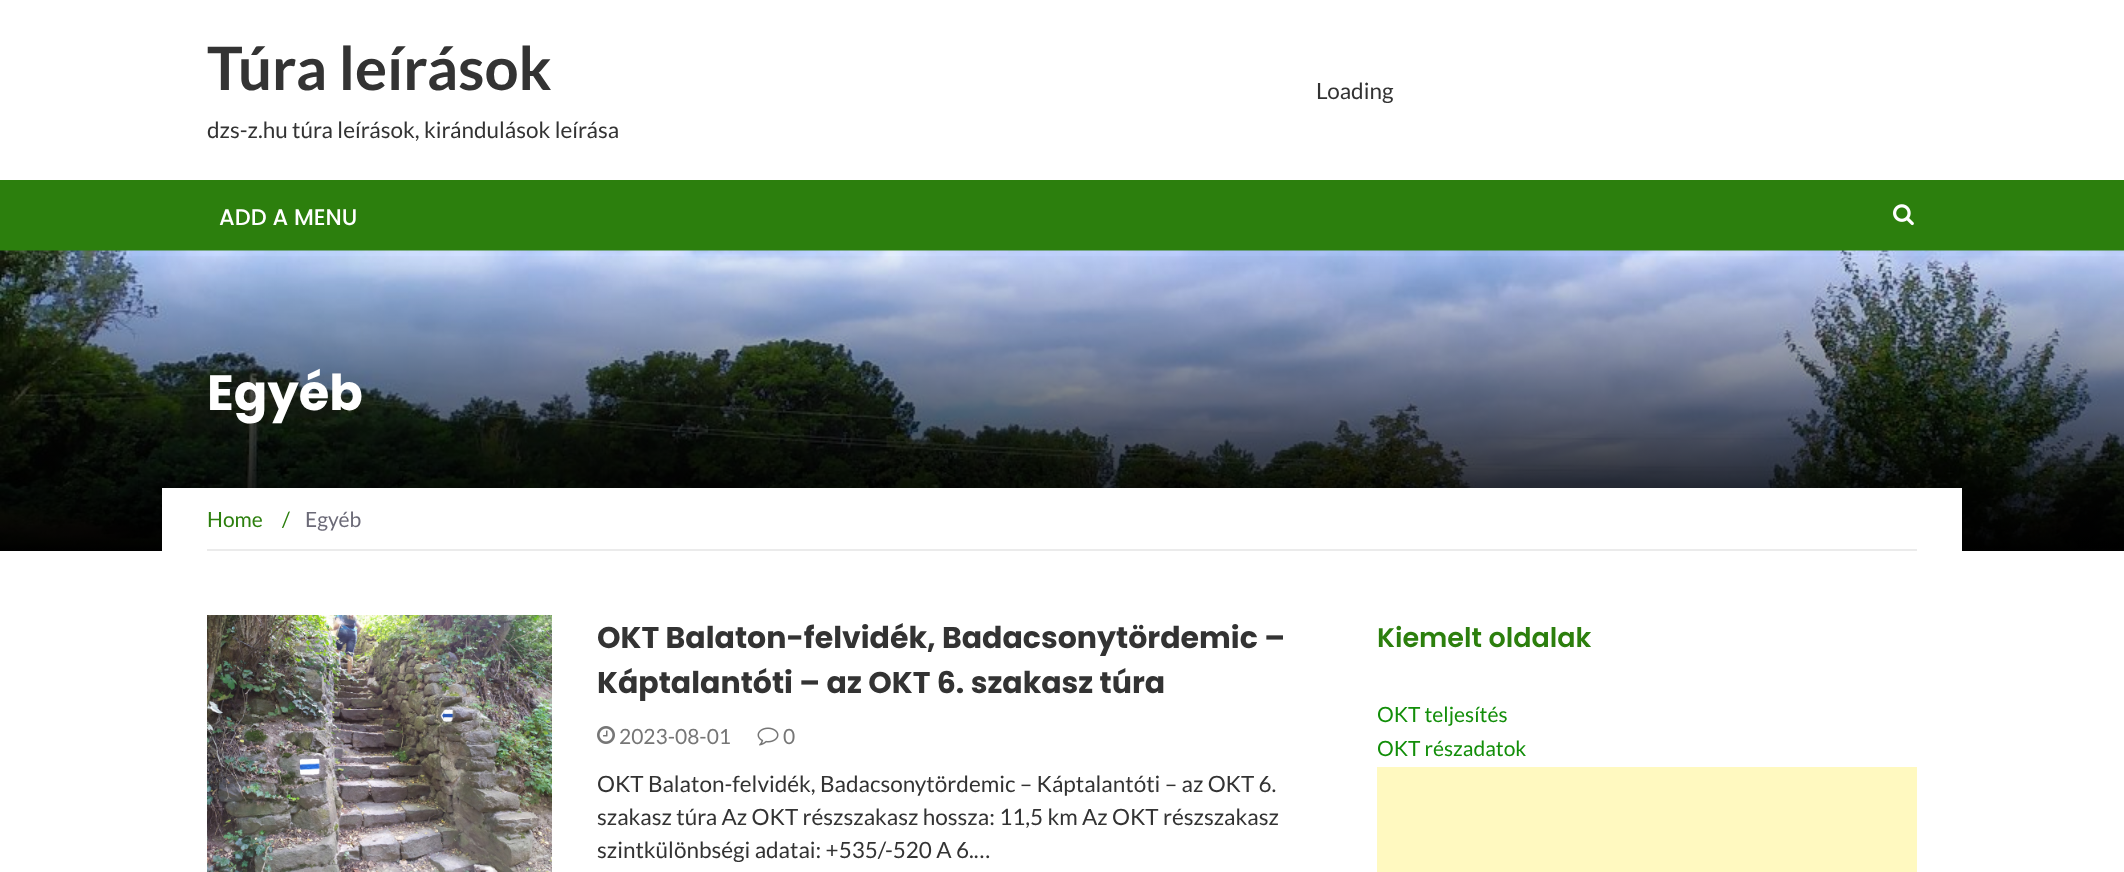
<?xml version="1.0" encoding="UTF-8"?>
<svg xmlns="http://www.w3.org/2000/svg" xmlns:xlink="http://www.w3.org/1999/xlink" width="2124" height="872">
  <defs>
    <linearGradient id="g1" gradientUnits="userSpaceOnUse" x1="1062" y1="250" x2="1062" y2="551"><stop offset="0" stop-color="#000000" stop-opacity="0" /><stop offset="1" stop-color="#000000" /></linearGradient>
  </defs>
  <rect width="100%" height="100%" fill="#ffffff" />
  <rect y="180" width="2124" height="71" fill="#2c7f0d" />
  <image x="1893" y="204" width="21" height="22" xlink:href="image1.png" />
  <image x="0" y="250" width="2124" height="299" xlink:href="image2.png" />
  <rect y="256" width="2124" height="295" fill="url(#g1)" />
  <rect x="162" y="488" width="1800" height="63" fill="#ffffff" />
  <rect x="207" y="549" width="1710" height="2" fill="#ebebeb" />
  <image x="207" y="615" width="345" height="257" xlink:href="image3.png" />
  <image x="597" y="726" width="18" height="18" xlink:href="image4.png" />
  <image x="757" y="727" width="22" height="19" xlink:href="image5.png" />
  <rect x="1377" y="767" width="540" height="105" fill="#fff9c0" />
  <text x="207" y="90" style="font-family: Lato; font-size: 60px; font-weight: bold; fill: #333333">Túra leírások</text>
  <text x="207" y="138" style="font-family: Lato; font-size: 22.5px; fill: #333333">dzs-z.hu túra leírások, kirándulások leírása</text>
  <text x="1316" y="99" style="font-family: Lato; font-size: 22.5px; fill: #333333">Loading</text>
  <text x="219" y="225" style="font-family: Poppins; font-size: 22.5px; font-weight: 500; fill: #ffffff">ADD A MENU</text>
  <text x="207" y="410" style="font-family: Poppins; font-size: 49.5px; font-weight: bold; fill: #ffffff">Egyéb</text>
  <text x="207" y="527" style="font-family: Lato; font-size: 21px; fill: #2c7f0d">Home</text>
  <text x="282" y="527" style="font-family: Lato; font-size: 21px; fill: #2c7f0d">/</text>
  <text x="305" y="527" style="font-family: Lato; font-size: 21px; fill: #6b6a77">Egyéb</text>
  <text x="597" y="648" style="font-family: Poppins; font-size: 30px; font-weight: bold; fill: #333333">OKT Balaton-felvidék, Badacsonytördemic –</text>
  <text x="597" y="693" style="font-family: Poppins; font-size: 30px; font-weight: bold; fill: #333333">Káptalantóti – az OKT 6. szakasz túra</text>
  <text x="619" y="744" style="font-family: Lato; font-size: 21px; fill: #767676">2023-08-01</text>
  <text x="783" y="744" style="font-family: Lato; font-size: 21px; fill: #767676">0</text>
  <text x="597" y="792" style="font-family: Lato; font-size: 22.5px; fill: #333333">OKT Balaton-felvidék, Badacsonytördemic – Káptalantóti – az OKT 6.</text>
  <text x="597" y="825" style="font-family: Lato; font-size: 22.5px; fill: #333333">szakasz túra Az OKT részszakasz hossza: 11,5 km Az OKT részszakasz</text>
  <text x="597" y="858" style="font-family: Lato; font-size: 22.5px; fill: #333333">szintkülönbségi adatai: +535/-520 A 6.…</text>
  <text x="1377" y="647" style="font-family: Poppins; font-size: 27px; font-weight: 600; fill: #2c7f0d">Kiemelt oldalak</text>
  <text x="1377" y="722" style="font-family: Lato; font-size: 21px; fill: #128e09">OKT teljesítés</text>
  <text x="1377" y="756" style="font-family: Lato; font-size: 21px; fill: #128e09">OKT részadatok</text>
</svg>
